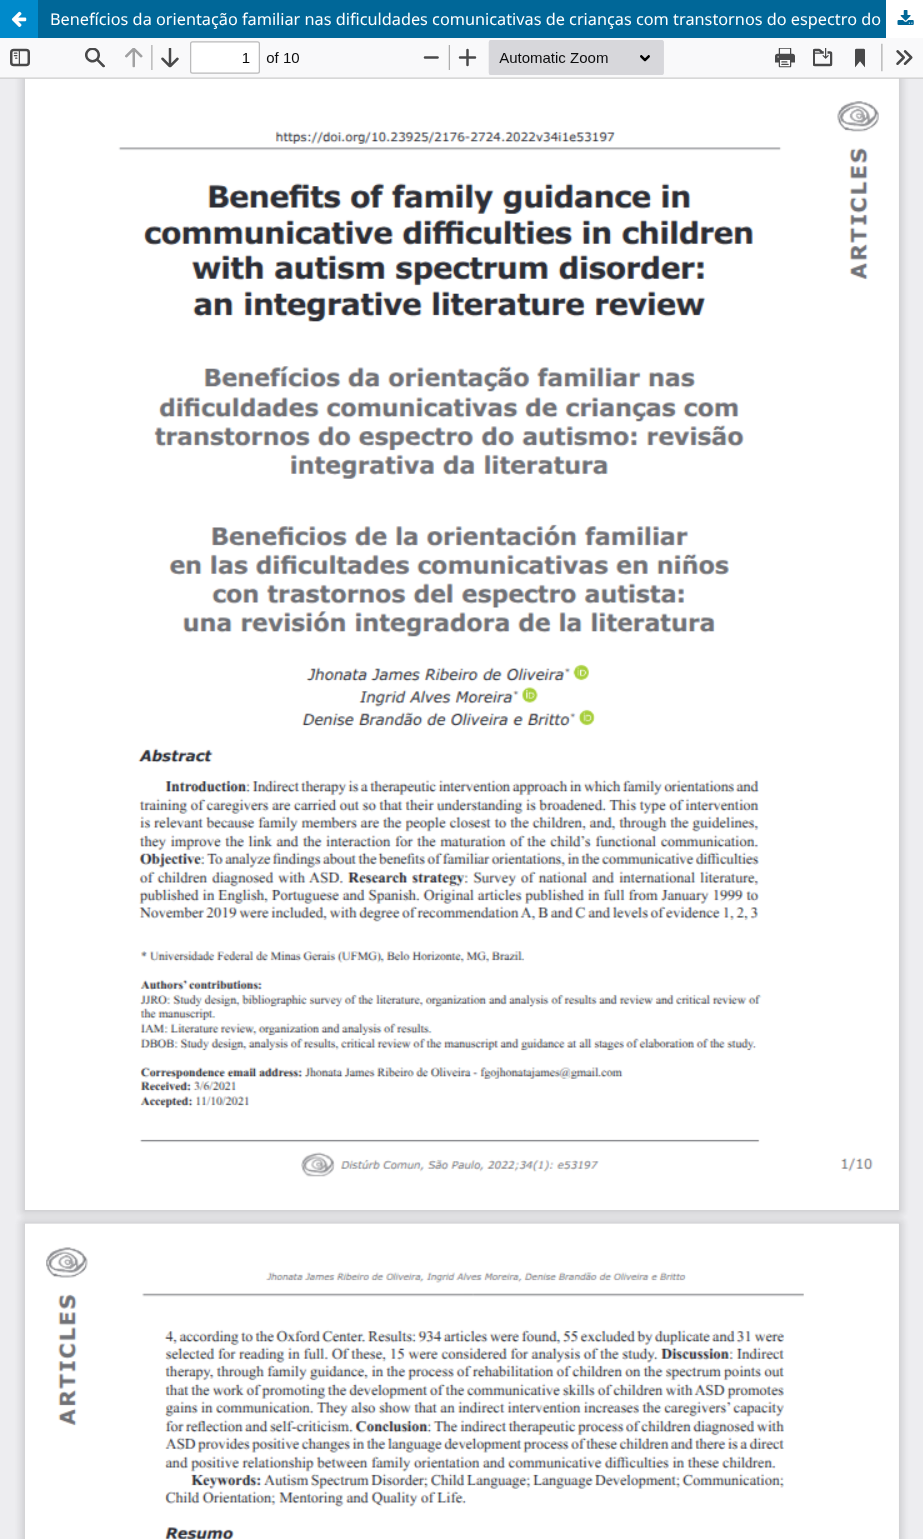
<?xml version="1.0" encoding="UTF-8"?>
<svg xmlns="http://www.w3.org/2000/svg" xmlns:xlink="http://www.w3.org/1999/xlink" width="923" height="1539">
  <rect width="100%" height="100%" fill="#ffffff" />
  <rect x="38" width="848" height="38" fill="#006798" />
  <rect width="38" height="38" fill="#008acb" />
  <image x="11" y="11" width="16" height="16" xlink:href="image1.png" />
  <image x="897" y="10" width="17" height="15" xlink:href="image2.png" />
  <image x="0" y="38" width="923" height="1501" xlink:href="image3.png" />
  <text x="50" y="25" style="font-family: Noto Sans; font-size: 16.27px; fill: #ffffff">Benefícios da orientação familiar nas dificuldades comunicativas de crianças com transtornos do espectro do</text>
</svg>
